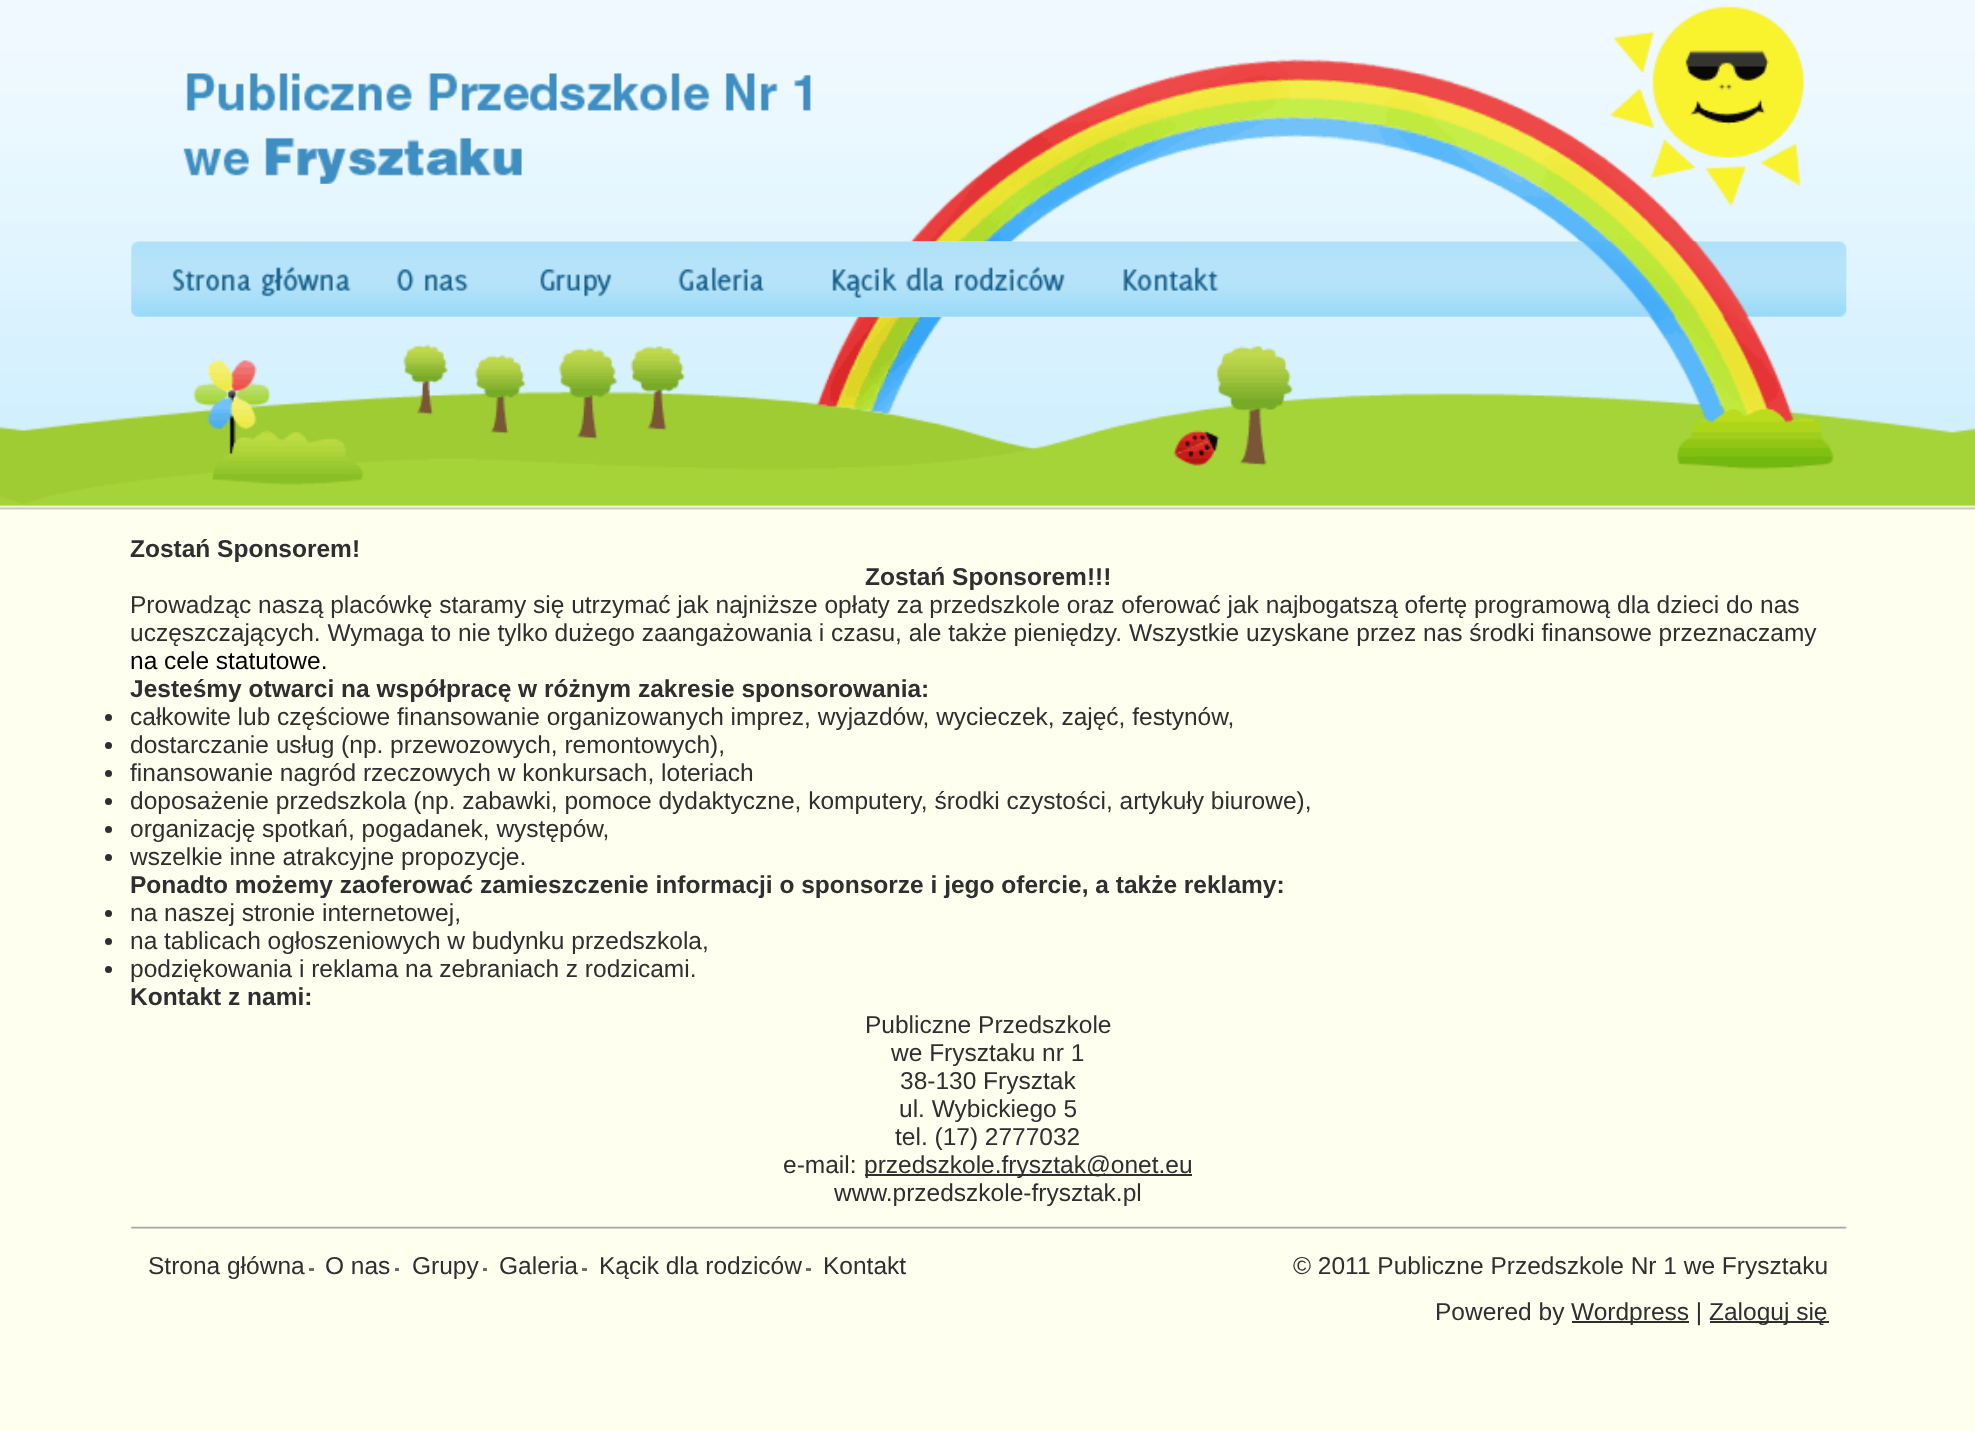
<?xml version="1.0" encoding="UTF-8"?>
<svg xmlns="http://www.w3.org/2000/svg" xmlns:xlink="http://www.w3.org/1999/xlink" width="1975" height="1431">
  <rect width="100%" height="100%" fill="#fffff0" />
  <image x="0" y="0" width="1975" height="510" xlink:href="image1.png" />
  <image x="183" y="73" width="628" height="111" xlink:href="image2.png" />
  <image x="131" y="241" width="1716" height="76" xlink:href="image3.png" />
  <image x="172" y="265" width="179" height="32" xlink:href="image4.png" />
  <image x="396" y="269" width="72" height="22" xlink:href="image5.png" />
  <image x="540" y="269" width="72" height="28" xlink:href="image6.png" />
  <image x="678" y="267" width="87" height="24" xlink:href="image7.png" />
  <image x="832" y="266" width="233" height="32" xlink:href="image8.png" />
  <image x="1123" y="267" width="96" height="24" xlink:href="image9.png" />
  <circle cx="108.5" cy="717.5" r="3.5" fill="#2e2f30" />
  <circle cx="108.5" cy="745.5" r="3.5" fill="#2e2f30" />
  <circle cx="108.5" cy="773.5" r="3.5" fill="#2e2f30" />
  <circle cx="108.5" cy="801.5" r="3.5" fill="#2e2f30" />
  <circle cx="108.5" cy="829.5" r="3.5" fill="#2e2f30" />
  <circle cx="108.5" cy="857.5" r="3.5" fill="#2e2f30" />
  <circle cx="108.5" cy="913.5" r="3.5" fill="#2e2f30" />
  <circle cx="108.5" cy="941.5" r="3.5" fill="#2e2f30" />
  <circle cx="108.5" cy="969.5" r="3.5" fill="#2e2f30" />
  <rect x="865" y="1174" width="327" height="2" fill="#2e2f30" />
  <image x="131" y="1226" width="1716" height="3" xlink:href="image10.png" />
  <rect x="309" y="1268" width="5" height="3" fill="#6d6d6b" />
  <rect x="395" y="1268" width="4" height="3" fill="#6d6d6b" />
  <rect x="483" y="1268" width="4" height="3" fill="#6d6d6b" />
  <rect x="582" y="1268" width="5" height="3" fill="#6d6d6b" />
  <rect x="806" y="1268" width="5" height="3" fill="#6d6d6b" />
  <rect x="1572" y="1321" width="117" height="2" fill="#2e2f30" />
  <rect x="1710" y="1321" width="119" height="2" fill="#2e2f30" />
  <text x="130" y="557" style="font-family: Liberation Sans; font-size: 24.5px; font-weight: bold; fill: #2e2f30">Zostań Sponsorem!</text>
  <text x="865" y="585" style="font-family: Liberation Sans; font-size: 24.5px; font-weight: bold; fill: #2e2f30">Zostań Sponsorem!!!</text>
  <text x="130" y="613" style="font-family: Liberation Sans; font-size: 24.5px; fill: #2e2f30">Prowadząc naszą placówkę staramy się utrzymać jak najniższe opłaty za przedszkole oraz oferować jak najbogatszą ofertę programową dla dzieci do nas</text>
  <text x="130" y="641" style="font-family: Liberation Sans; font-size: 24.5px; fill: #2e2f30">uczęszczających. Wymaga to nie tylko dużego zaangażowania i czasu, ale także pieniędzy. Wszystkie uzyskane przez nas środki finansowe przeznaczamy</text>
  <text x="130" y="669" style="font-family: Liberation Sans; font-size: 24.5px; fill: #000000">na cele statutowe.</text>
  <text x="130" y="697" style="font-family: Liberation Sans; font-size: 24.5px; font-weight: bold; fill: #2e2f30">Jesteśmy otwarci na współpracę w różnym zakresie sponsorowania:</text>
  <text x="130" y="725" style="font-family: Liberation Sans; font-size: 24.5px; fill: #2e2f30">całkowite lub częściowe finansowanie organizowanych imprez, wyjazdów, wycieczek, zajęć, festynów,</text>
  <text x="130" y="753" style="font-family: Liberation Sans; font-size: 24.5px; fill: #2e2f30">dostarczanie usług (np. przewozowych, remontowych),</text>
  <text x="130" y="781" style="font-family: Liberation Sans; font-size: 24.5px; fill: #2e2f30">finansowanie nagród rzeczowych w konkursach, loteriach</text>
  <text x="130" y="809" style="font-family: Liberation Sans; font-size: 24.5px; fill: #2e2f30">doposażenie przedszkola (np. zabawki, pomoce dydaktyczne, komputery, środki czystości, artykuły biurowe),</text>
  <text x="130" y="837" style="font-family: Liberation Sans; font-size: 24.5px; fill: #2e2f30">organizację spotkań, pogadanek, występów,</text>
  <text x="130" y="865" style="font-family: Liberation Sans; font-size: 24.5px; fill: #2e2f30">wszelkie inne atrakcyjne propozycje.</text>
  <text x="130" y="893" style="font-family: Liberation Sans; font-size: 24.5px; font-weight: bold; fill: #2e2f30">Ponadto możemy zaoferować zamieszczenie informacji o sponsorze i jego ofercie, a także reklamy:</text>
  <text x="130" y="921" style="font-family: Liberation Sans; font-size: 24.5px; fill: #2e2f30">na naszej stronie internetowej,</text>
  <text x="130" y="949" style="font-family: Liberation Sans; font-size: 24.5px; fill: #2e2f30">na tablicach ogłoszeniowych w budynku przedszkola,</text>
  <text x="130" y="977" style="font-family: Liberation Sans; font-size: 24.5px; fill: #2e2f30">podziękowania i reklama na zebraniach z rodzicami.</text>
  <text x="130" y="1005" style="font-family: Liberation Sans; font-size: 24.5px; font-weight: bold; fill: #2e2f30">Kontakt z nami:</text>
  <text x="865" y="1033" style="font-family: Liberation Sans; font-size: 24.5px; fill: #2e2f30">Publiczne Przedszkole</text>
  <text x="891" y="1061" style="font-family: Liberation Sans; font-size: 24.5px; fill: #2e2f30">we Frysztaku nr 1</text>
  <text x="900" y="1089" style="font-family: Liberation Sans; font-size: 24.5px; fill: #2e2f30">38-130 Frysztak</text>
  <text x="899" y="1117" style="font-family: Liberation Sans; font-size: 24.5px; fill: #2e2f30">ul. Wybickiego 5</text>
  <text x="895" y="1145" style="font-family: Liberation Sans; font-size: 24.5px; fill: #2e2f30">tel. (17) 2777032</text>
  <text x="783" y="1173" style="font-family: Liberation Sans; font-size: 24.5px; fill: #2e2f30">e-mail:</text>
  <text x="864" y="1173" style="font-family: Liberation Sans; font-size: 24.5px; fill: #2e2f30">przedszkole.frysztak@onet.eu</text>
  <text x="834" y="1201" style="font-family: Liberation Sans; font-size: 24.5px; fill: #2e2f30">www.przedszkole-frysztak.pl</text>
  <text x="148" y="1274" style="font-family: Liberation Sans; font-size: 24.5px; fill: #2e2f30">Strona główna</text>
  <text x="325" y="1274" style="font-family: Liberation Sans; font-size: 24.5px; fill: #2e2f30">O nas</text>
  <text x="412" y="1274" style="font-family: Liberation Sans; font-size: 24.5px; fill: #2e2f30">Grupy</text>
  <text x="499" y="1274" style="font-family: Liberation Sans; font-size: 24.5px; fill: #2e2f30">Galeria</text>
  <text x="599" y="1274" style="font-family: Liberation Sans; font-size: 24.5px; fill: #2e2f30">Kącik dla rodziców</text>
  <text x="823" y="1274" style="font-family: Liberation Sans; font-size: 24.5px; fill: #2e2f30">Kontakt</text>
  <text x="1293" y="1274" style="font-family: Liberation Sans; font-size: 24.5px; fill: #2e2f30">© 2011 Publiczne Przedszkole Nr 1 we Frysztaku</text>
  <text x="1435" y="1320" style="font-family: Liberation Sans; font-size: 24.5px; fill: #2e2f30">Powered by</text>
  <text x="1571" y="1320" style="font-family: Liberation Sans; font-size: 24.5px; fill: #2e2f30">Wordpress |</text>
  <text x="1709" y="1320" style="font-family: Liberation Sans; font-size: 24.5px; fill: #2e2f30">Zaloguj się</text>
</svg>
